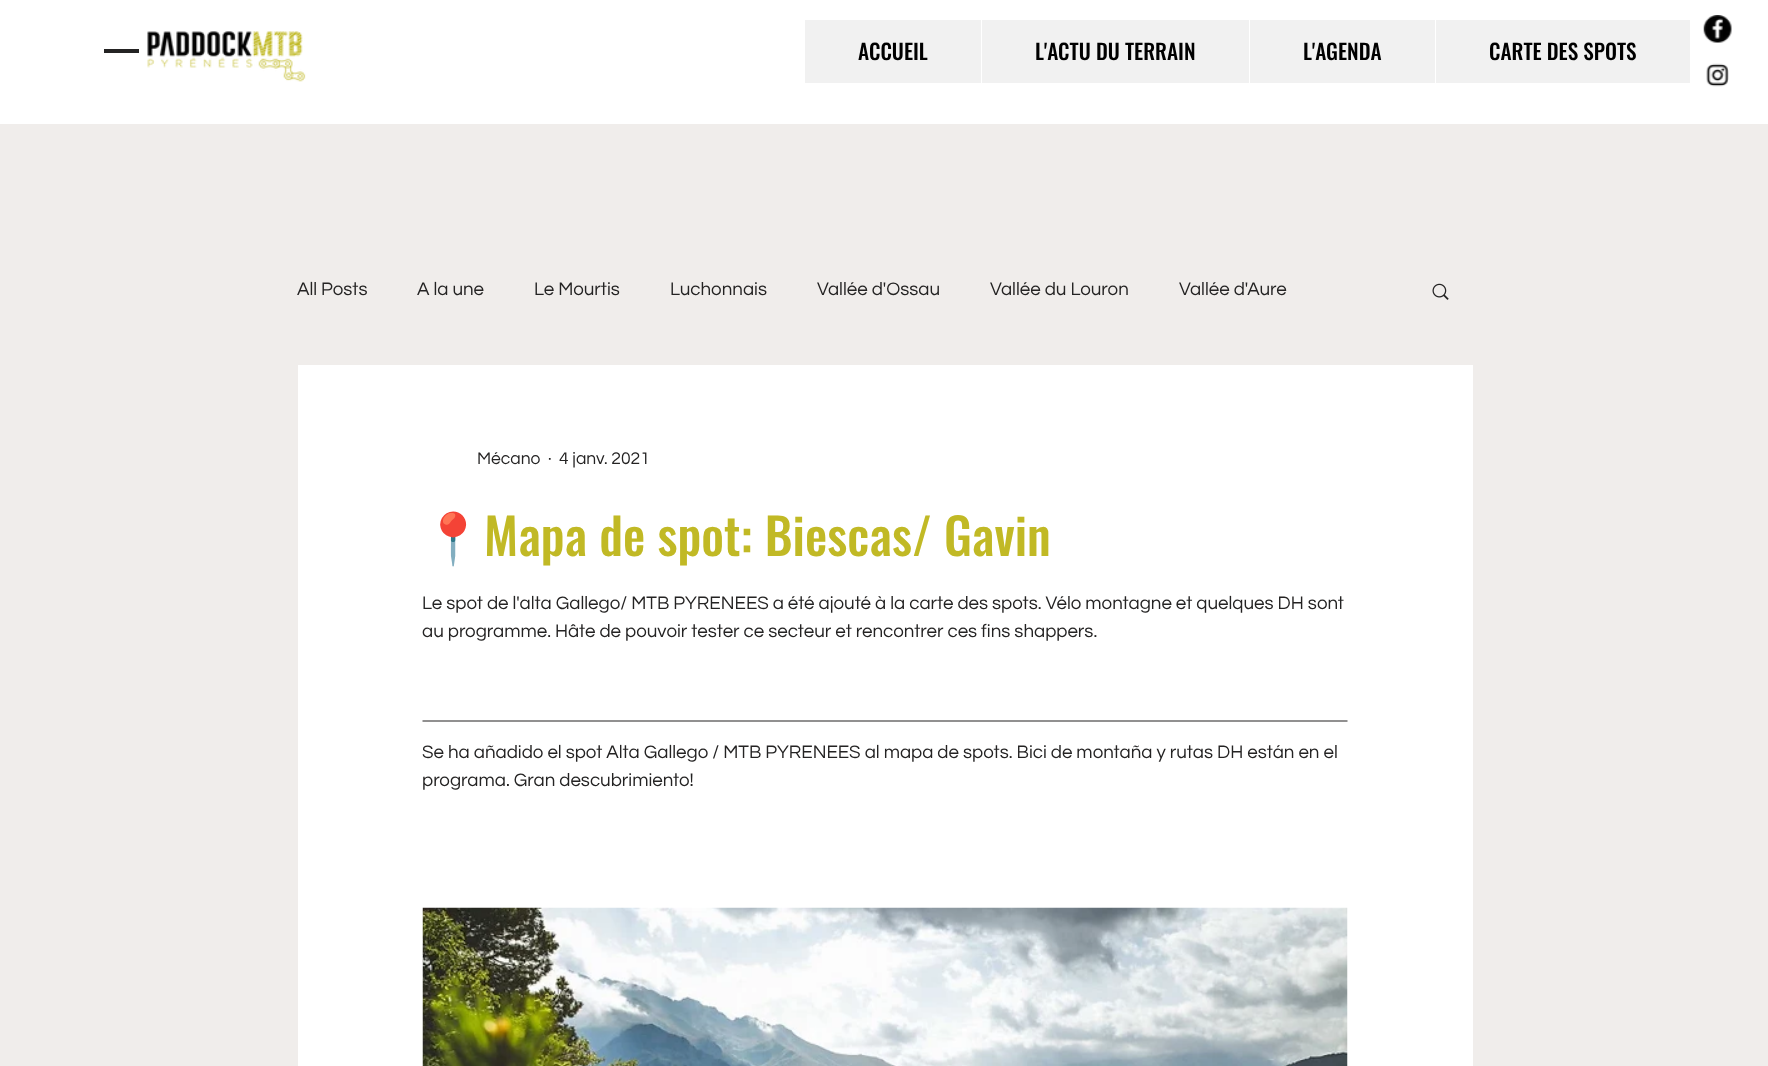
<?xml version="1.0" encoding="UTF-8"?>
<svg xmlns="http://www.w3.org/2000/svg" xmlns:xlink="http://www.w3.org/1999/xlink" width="1768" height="1066">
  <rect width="100%" height="100%" fill="#f0edeb" />
  <rect width="1768" height="124" fill="#ffffff" />
  <rect x="104" y="49" width="35" height="4" fill="#242323" />
  <image x="147" y="31" width="159" height="51" xlink:href="image1.png" />
  <rect x="805" y="20" width="885" height="63" fill="#f1f1f1" />
  <rect x="981" y="20" width="1" height="63" fill="#ffffff" />
  <rect x="1249" y="20" width="1" height="63" fill="#ffffff" />
  <rect x="1435" y="20" width="1" height="63" fill="#ffffff" />
  <image x="1703" y="15" width="29" height="28" xlink:href="image2.png" />
  <image x="1706" y="63" width="23" height="24" xlink:href="image3.png" />
  <image x="1432" y="283" width="17" height="17" xlink:href="image4.png" />
  <rect x="298" y="365" width="1175" height="701" fill="#ffffff" />
  <path d="M 422.5 721 h 925" fill="none" stroke="#242323" stroke-width="1.2" />
  <image x="422" y="907" width="926" height="159" xlink:href="image5.png" />
  <text x="858" y="60" style="font-family: Oswald; font-size: 21.25px; font-weight: 500; fill: #000000">ACCUEIL</text>
  <text x="1035" y="60" style="font-family: Oswald; font-size: 21.25px; font-weight: 500; fill: #000000">L'ACTU DU TERRAIN</text>
  <text x="1303" y="60" style="font-family: Oswald; font-size: 21.25px; font-weight: 500; fill: #000000">L'AGENDA</text>
  <text x="1489" y="60" style="font-family: Oswald; font-size: 21.25px; font-weight: 500; fill: #000000">CARTE DES SPOTS</text>
  <text x="297" y="295" style="font-family: Questrial; font-size: 18.75px; fill: #242323">All Posts</text>
  <text x="417" y="295" style="font-family: Questrial; font-size: 18.75px; fill: #242323">A la une</text>
  <text x="534" y="295" style="font-family: Questrial; font-size: 18.75px; fill: #242323">Le Mourtis</text>
  <text x="670" y="295" style="font-family: Questrial; font-size: 18.75px; fill: #242323">Luchonnais</text>
  <text x="817" y="295" style="font-family: Questrial; font-size: 18.75px; fill: #242323">Vallée d'Ossau</text>
  <text x="990" y="295" style="font-family: Questrial; font-size: 18.75px; fill: #242323">Vallée du Louron</text>
  <text x="1179" y="295" style="font-family: Questrial; font-size: 18.75px; fill: #242323">Vallée d'Aure</text>
  <text x="477" y="464" style="font-family: Questrial; font-size: 17.5px; fill: #242323">Mécano</text>
  <text x="548" y="464" style="font-family: Questrial; font-size: 17.5px; fill: #242323">·</text>
  <text x="559" y="464" style="font-family: Questrial; font-size: 17.5px; fill: #242323">4 janv. 2021</text>
  <text x="422" y="556" style="font-family: Noto Color Emoji; font-size: 50px; fill: #c1b925">📍</text>
  <text x="484" y="556" style="font-family: Oswald; font-size: 50px; font-weight: 500; fill: #c1b925">Mapa de spot: Biescas/ Gavin</text>
  <text x="422" y="609" style="font-family: Questrial; font-size: 18.75px; fill: #242323">Le spot de l'alta Gallego/ MTB PYRENEES a été ajouté à la carte des spots. Vélo montagne et quelques DH sont</text>
  <text x="422" y="637" style="font-family: Questrial; font-size: 18.75px; fill: #242323">au programme. Hâte de pouvoir tester ce secteur et rencontrer ces fins shappers.</text>
  <text x="422" y="758" style="font-family: Questrial; font-size: 18.75px; fill: #242323">Se ha añadido el spot Alta Gallego / MTB PYRENEES al mapa de spots. Bici de montaña y rutas DH están en el</text>
  <text x="422" y="786" style="font-family: Questrial; font-size: 18.75px; fill: #242323">programa. Gran descubrimiento!</text>
</svg>
